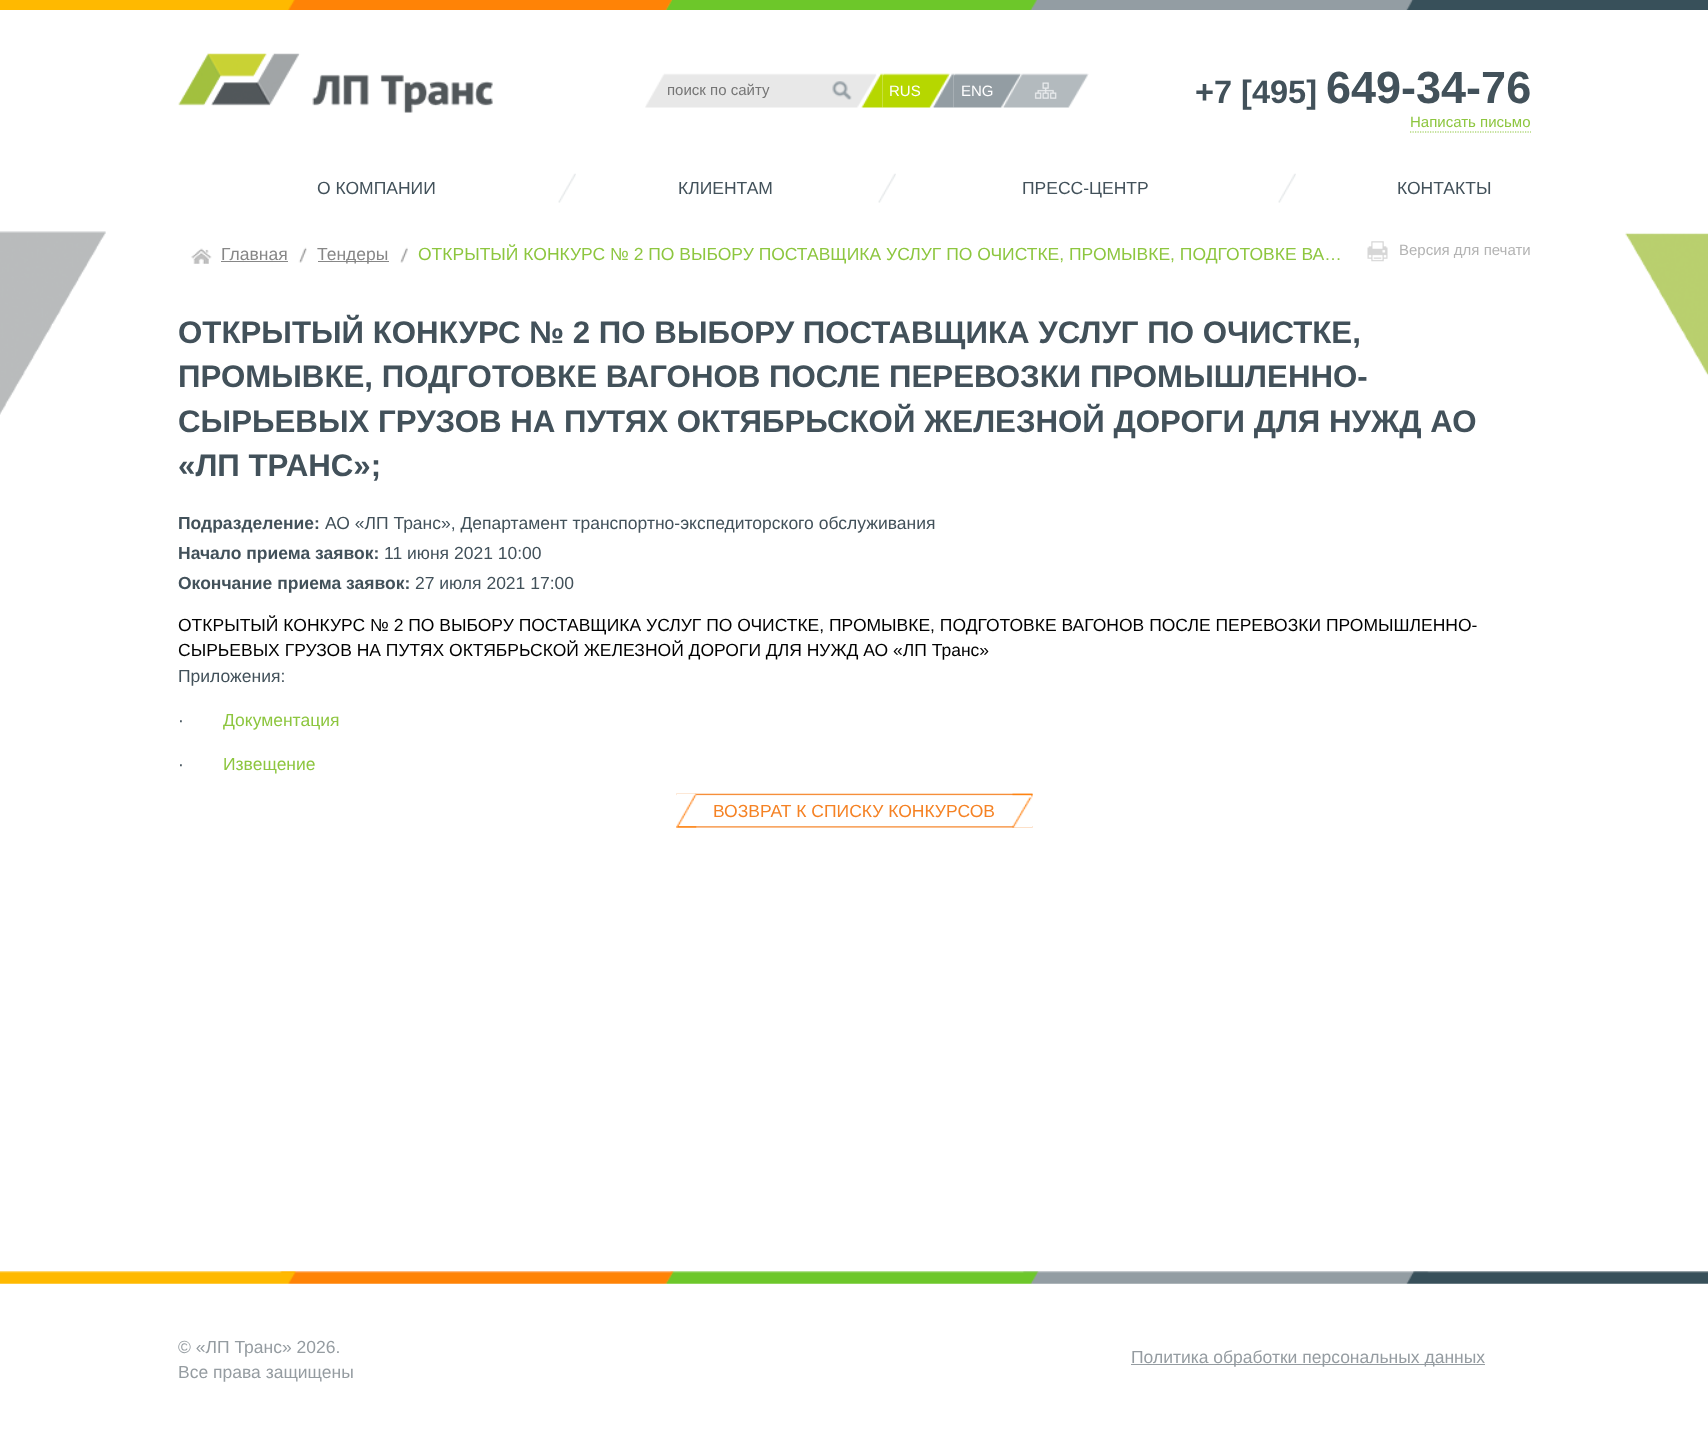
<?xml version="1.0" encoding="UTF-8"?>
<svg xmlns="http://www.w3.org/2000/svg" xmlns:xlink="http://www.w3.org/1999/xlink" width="1708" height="1443">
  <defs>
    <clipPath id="clip1"><rect x="668" y="81" width="150" height="18" /></clipPath>
  </defs>
  <rect width="100%" height="100%" fill="#ffffff" />
  <image x="0" y="231" width="1708" height="184" xlink:href="image1.png" />
  <image x="0" y="0" width="1708" height="10" xlink:href="image2.png" />
  <image x="178" y="53" width="315" height="60" xlink:href="image3.png" />
  <image x="645" y="73" width="232" height="35" xlink:href="image4.png" />
  <image x="832" y="81" width="20" height="19" xlink:href="image5.png" />
  <image x="882" y="73" width="68" height="35" xlink:href="image6.png" />
  <image x="861" y="73" width="22" height="35" xlink:href="image7.png" />
  <image x="953" y="73" width="69" height="35" xlink:href="image8.png" />
  <image x="932" y="73" width="22" height="35" xlink:href="image9.png" />
  <image x="1002" y="73" width="87" height="35" xlink:href="image10.png" />
  <path d="M 1410 132 h 121" fill="none" stroke="#8dc63f" stroke-width="1.2" stroke-dasharray="1.25 1.25" />
  <image x="558" y="173" width="18" height="30" xlink:href="image11.png" />
  <image x="878" y="173" width="18" height="30" xlink:href="image12.png" />
  <image x="1278" y="173" width="18" height="30" xlink:href="image12.png" />
  <image x="191" y="248" width="21" height="16" xlink:href="image13.png" />
  <rect x="221" y="261" width="67" height="1" fill="#878787" />
  <image x="298" y="247" width="9" height="16" xlink:href="image14.png" />
  <rect x="318" y="261" width="71" height="1" fill="#878787" />
  <image x="400" y="247" width="8" height="16" xlink:href="image15.png" />
  <image x="1367" y="241" width="21" height="21" xlink:href="image16.png" />
  <image x="676" y="793" width="357" height="35" xlink:href="image17.png" />
  <image x="676" y="793" width="21" height="35" xlink:href="image18.png" />
  <image x="1012" y="793" width="21" height="35" xlink:href="image19.png" />
  <image x="0" y="1271" width="1708" height="13" xlink:href="image20.png" />
  <rect x="1131" y="1364" width="354" height="1" fill="#959ca1" />
  <g clip-path="url(#clip1)">
    <text x="667" y="95" style="font-family: Liberation Sans; font-size: 15px; fill: #757575">поиск по сайту</text>
  </g>
  <text x="889" y="96" style="font-family: Liberation Sans; font-size: 15px; fill: #ffffff">RUS</text>
  <text x="961" y="96" style="font-family: Liberation Sans; font-size: 15px; fill: #ffffff">ENG</text>
  <text x="1195" y="103" style="font-family: Liberation Sans; font-size: 32.5px; font-weight: bold; fill: #42515a">+7 [495]</text>
  <text x="1326" y="103" style="font-family: Liberation Sans; font-size: 45px; font-weight: bold; fill: #42515a">649-34-76</text>
  <text x="1410" y="127" style="font-family: Liberation Sans; font-size: 15px; fill: #8dc63f">Написать письмо</text>
  <text x="317" y="194" style="font-family: Liberation Sans; font-size: 17.5px; fill: #42515a">О КОМПАНИИ</text>
  <text x="678" y="194" style="font-family: Liberation Sans; font-size: 17.5px; fill: #42515a">КЛИЕНТАМ</text>
  <text x="1022" y="194" style="font-family: Liberation Sans; font-size: 17.5px; fill: #42515a">ПРЕСС-ЦЕНТР</text>
  <text x="1397" y="194" style="font-family: Liberation Sans; font-size: 17.5px; fill: #42515a">КОНТАКТЫ</text>
  <text x="221" y="260" style="font-family: Liberation Sans; font-size: 17.5px; fill: #878787">Главная</text>
  <text x="317" y="260" style="font-family: Liberation Sans; font-size: 17.5px; fill: #878787">Тендеры</text>
  <text x="418" y="260" style="font-family: Liberation Sans; font-size: 17.5px; fill: #8dc63f">ОТКРЫТЫЙ КОНКУРС № 2 ПО ВЫБОРУ ПОСТАВЩИКА УСЛУГ ПО ОЧИСТКЕ, ПРОМЫВКЕ, ПОДГОТОВКЕ ВА…</text>
  <text x="1399" y="255" style="font-family: Liberation Sans; font-size: 15px; fill: #b3b3b3">Версия для печати</text>
  <text x="178" y="343" style="font-family: Liberation Sans; font-size: 31.25px; font-weight: bold; fill: #42515a">ОТКРЫТЫЙ КОНКУРС № 2 ПО ВЫБОРУ ПОСТАВЩИКА УСЛУГ ПО ОЧИСТКЕ,</text>
  <text x="178" y="387" style="font-family: Liberation Sans; font-size: 31.25px; font-weight: bold; fill: #42515a">ПРОМЫВКЕ, ПОДГОТОВКЕ ВАГОНОВ ПОСЛЕ ПЕРЕВОЗКИ ПРОМЫШЛЕННО-</text>
  <text x="178" y="432" style="font-family: Liberation Sans; font-size: 31.25px; font-weight: bold; fill: #42515a">СЫРЬЕВЫХ ГРУЗОВ НА ПУТЯХ ОКТЯБРЬСКОЙ ЖЕЛЕЗНОЙ ДОРОГИ ДЛЯ НУЖД АО</text>
  <text x="178" y="476" style="font-family: Liberation Sans; font-size: 31.25px; font-weight: bold; fill: #42515a">«ЛП ТРАНС»;</text>
  <text x="178" y="529" style="font-family: Liberation Sans; font-size: 17.5px; font-weight: bold; fill: #42515a">Подразделение:</text>
  <text x="325" y="529" style="font-family: Liberation Sans; font-size: 17.5px; fill: #42515a">АО «ЛП Транс», Департамент транспортно-экспедиторского обслуживания</text>
  <text x="178" y="559" style="font-family: Liberation Sans; font-size: 17.5px; font-weight: bold; fill: #42515a">Начало приема заявок:</text>
  <text x="384" y="559" style="font-family: Liberation Sans; font-size: 17.5px; fill: #42515a">11 июня 2021 10:00</text>
  <text x="178" y="589" style="font-family: Liberation Sans; font-size: 17.5px; font-weight: bold; fill: #42515a">Окончание приема заявок:</text>
  <text x="415" y="589" style="font-family: Liberation Sans; font-size: 17.5px; fill: #42515a">27 июля 2021 17:00</text>
  <text x="178" y="631" style="font-family: Liberation Sans; font-size: 17.5px; fill: #000000">ОТКРЫТЫЙ КОНКУРС № 2 ПО ВЫБОРУ ПОСТАВЩИКА УСЛУГ ПО ОЧИСТКЕ, ПРОМЫВКЕ, ПОДГОТОВКЕ ВАГОНОВ ПОСЛЕ ПЕРЕВОЗКИ ПРОМЫШЛЕННО-</text>
  <text x="178" y="656" style="font-family: Liberation Sans; font-size: 17.5px; fill: #000000">СЫРЬЕВЫХ ГРУЗОВ НА ПУТЯХ ОКТЯБРЬСКОЙ ЖЕЛЕЗНОЙ ДОРОГИ ДЛЯ НУЖД АО «ЛП Транс»</text>
  <text x="178" y="682" style="font-family: Liberation Sans; font-size: 17.5px; fill: #42515a">Приложения:</text>
  <text x="178" y="726" style="font-family: Liberation Sans; font-size: 17.5px; fill: #42515a">·</text>
  <text x="223" y="726" style="font-family: Liberation Sans; font-size: 17.5px; fill: #8dc63f">Документация</text>
  <text x="178" y="770" style="font-family: Liberation Sans; font-size: 17.5px; fill: #42515a">·</text>
  <text x="223" y="770" style="font-family: Liberation Sans; font-size: 17.5px; fill: #8dc63f">Извещение</text>
  <text x="713" y="817" style="font-family: Liberation Sans; font-size: 17.5px; fill: #f58224">ВОЗВРАТ К СПИСКУ КОНКУРСОВ</text>
  <text x="178" y="1353" style="font-family: Liberation Sans; font-size: 17.5px; fill: #959ca1">© «ЛП Транс» 2026.</text>
  <text x="178" y="1378" style="font-family: Liberation Sans; font-size: 17.5px; fill: #959ca1">Все права защищены</text>
  <text x="1131" y="1363" style="font-family: Liberation Sans; font-size: 17.5px; fill: #959ca1">Политика обработки персональных данных</text>
</svg>
